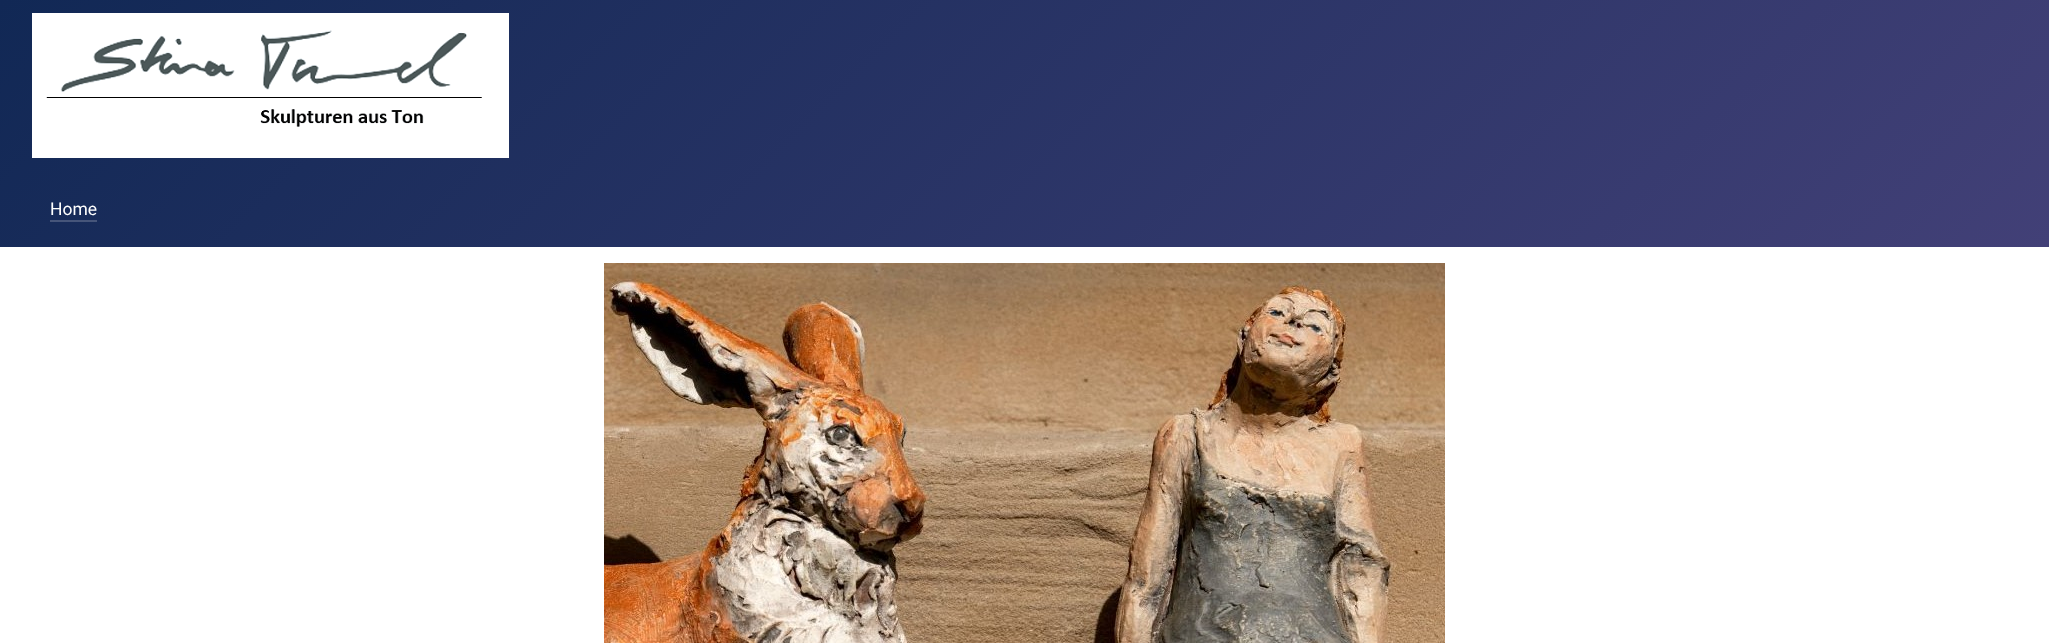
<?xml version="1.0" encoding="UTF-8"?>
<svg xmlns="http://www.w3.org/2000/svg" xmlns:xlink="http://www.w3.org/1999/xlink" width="2049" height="643">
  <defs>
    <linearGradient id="g1" gradientUnits="userSpaceOnUse" x1="451" y1="-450" x2="1599" y2="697"><stop offset="0" stop-color="#112855" /><stop offset="1" stop-color="#424077" /></linearGradient>
  </defs>
  <rect width="100%" height="100%" fill="#ffffff" />
  <rect width="2049" height="247" fill="url(#g1)" />
  <image x="32" y="13" width="477" height="145" xlink:href="image1.png" />
  <rect x="50" y="220" width="47" height="2" fill="#46557a" />
  <image x="604" y="263" width="841" height="380" xlink:href="image2.png" />
  <text x="50" y="215" style="font-family: Roboto; font-size: 17.5px; fill: #ffffff">Home</text>
</svg>
